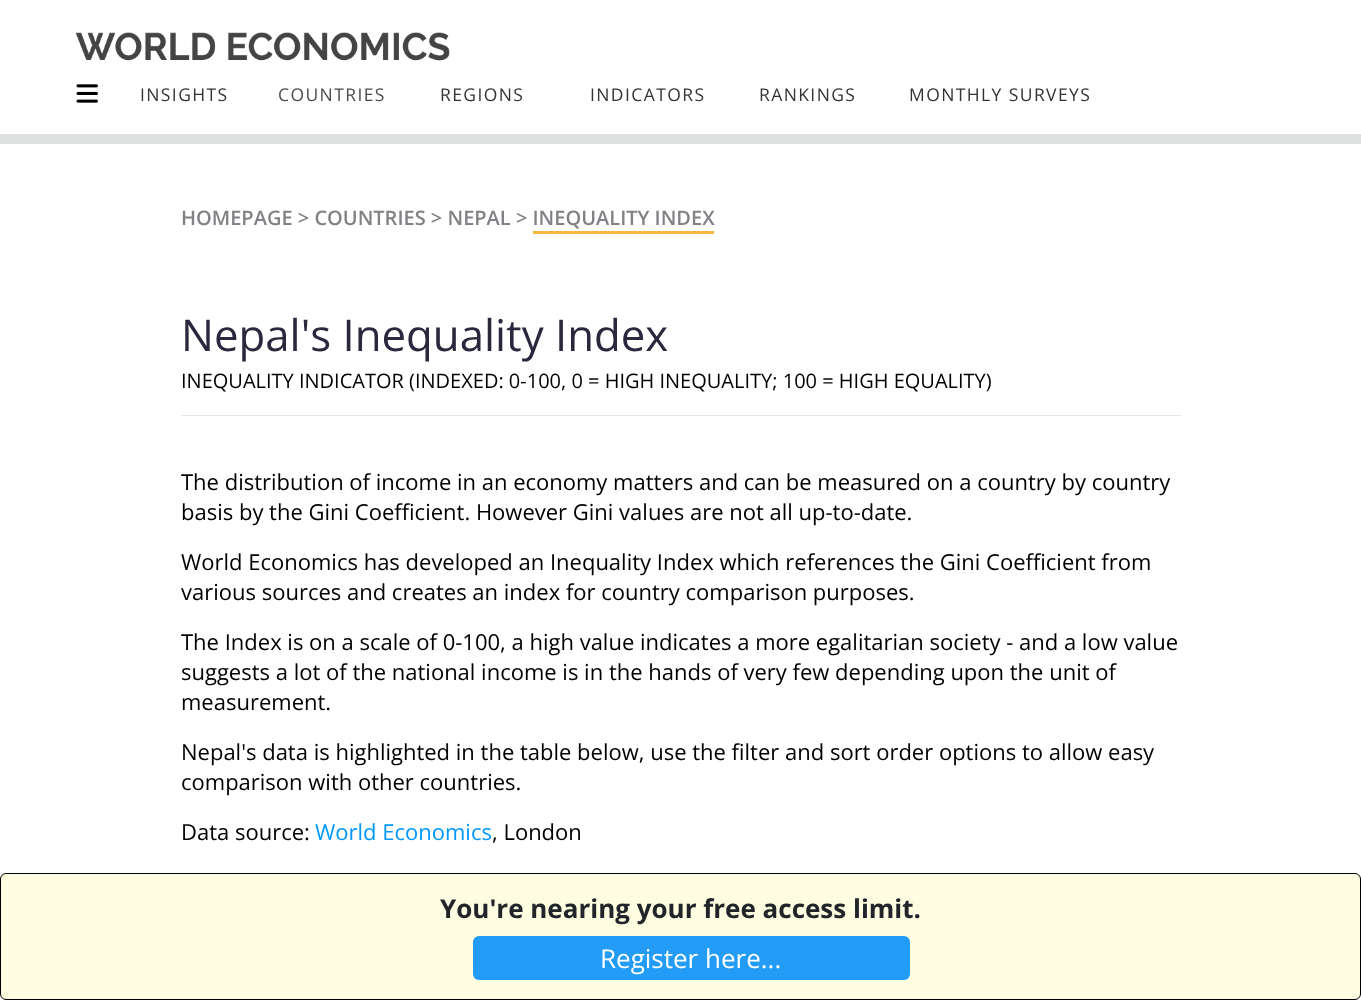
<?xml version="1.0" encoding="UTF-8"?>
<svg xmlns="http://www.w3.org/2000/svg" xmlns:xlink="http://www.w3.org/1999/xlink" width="1361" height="1000">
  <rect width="100%" height="100%" fill="#ffffff" />
  <rect y="134" width="1361" height="10" fill="#dfe0e0" />
  <image x="75" y="32" width="375" height="29" xlink:href="image1.png" />
  <image x="76" y="84" width="22" height="19" xlink:href="image2.png" />
  <rect x="533" y="231" width="181" height="3" fill="#f6b73d" />
  <rect x="181" y="415" width="1000" height="1" fill="#e6e6e6" />
  <rect x="0.5" y="873.5" width="1360" height="126" rx="5.5" fill="#fffde1" stroke="#000000" />
  <rect x="473" y="936" width="437" height="44" rx="6" fill="#229cf7" />
  <text x="140" y="101" style="font-family: Open Sans; font-size: 17.5px; letter-spacing: 1.4px; fill: #333333">INSIGHTS</text>
  <text x="278" y="101" style="font-family: Open Sans; font-size: 17.5px; letter-spacing: 1.4px; fill: #4b4b4b">COUNTRIES</text>
  <text x="440" y="101" style="font-family: Open Sans; font-size: 17.5px; letter-spacing: 1.4px; fill: #333333">REGIONS</text>
  <text x="590" y="101" style="font-family: Open Sans; font-size: 17.5px; letter-spacing: 1.4px; fill: #333333">INDICATORS</text>
  <text x="759" y="101" style="font-family: Open Sans; font-size: 17.5px; letter-spacing: 1.4px; fill: #333333">RANKINGS</text>
  <text x="909" y="101" style="font-family: Open Sans; font-size: 17.5px; letter-spacing: 1.4px; fill: #333333">MONTHLY SURVEYS</text>
  <text x="181" y="225" style="font-family: Open Sans; font-size: 20px; font-weight: 600; fill: #818285">HOMEPAGE &gt; COUNTRIES &gt; NEPAL &gt; INEQUALITY INDEX</text>
  <text x="181" y="351" style="font-family: Open Sans; font-size: 43.75px; fill: #2b273c">Nepal's Inequality Index</text>
  <text x="181" y="388" style="font-family: Open Sans; font-size: 20px; fill: #000000">INEQUALITY INDICATOR (INDEXED: 0-100, 0 = HIGH INEQUALITY; 100 = HIGH EQUALITY)</text>
  <text x="181" y="490" style="font-family: Open Sans; font-size: 22px; fill: #000000">The distribution of income in an economy matters and can be measured on a country by country</text>
  <text x="181" y="520" style="font-family: Open Sans; font-size: 22px; fill: #000000">basis by the Gini Coefficient. However Gini values are not all up-to-date.</text>
  <text x="181" y="570" style="font-family: Open Sans; font-size: 22px; fill: #000000">World Economics has developed an Inequality Index which references the Gini Coefficient from</text>
  <text x="181" y="600" style="font-family: Open Sans; font-size: 22px; fill: #000000">various sources and creates an index for country comparison purposes.</text>
  <text x="181" y="650" style="font-family: Open Sans; font-size: 22px; fill: #000000">The Index is on a scale of 0-100, a high value indicates a more egalitarian society - and a low value</text>
  <text x="181" y="680" style="font-family: Open Sans; font-size: 22px; fill: #000000">suggests a lot of the national income is in the hands of very few depending upon the unit of</text>
  <text x="181" y="710" style="font-family: Open Sans; font-size: 22px; fill: #000000">measurement.</text>
  <text x="181" y="760" style="font-family: Open Sans; font-size: 22px; fill: #000000">Nepal's data is highlighted in the table below, use the filter and sort order options to allow easy</text>
  <text x="181" y="790" style="font-family: Open Sans; font-size: 22px; fill: #000000">comparison with other countries.</text>
  <text x="181" y="840" style="font-family: Open Sans; font-size: 22px; fill: #000000">Data source:</text>
  <text x="315" y="840" style="font-family: Open Sans; font-size: 22px; fill: #0099fa">World Economics</text>
  <text x="492" y="840" style="font-family: Open Sans; font-size: 22px; fill: #000000">, London</text>
  <text x="440" y="918" style="font-family: Open Sans; font-size: 26px; font-weight: bold; fill: #212529">You're nearing your free access limit.</text>
  <text x="600" y="968" style="font-family: Open Sans; font-size: 26px; fill: #ffffff">Register here...</text>
</svg>
